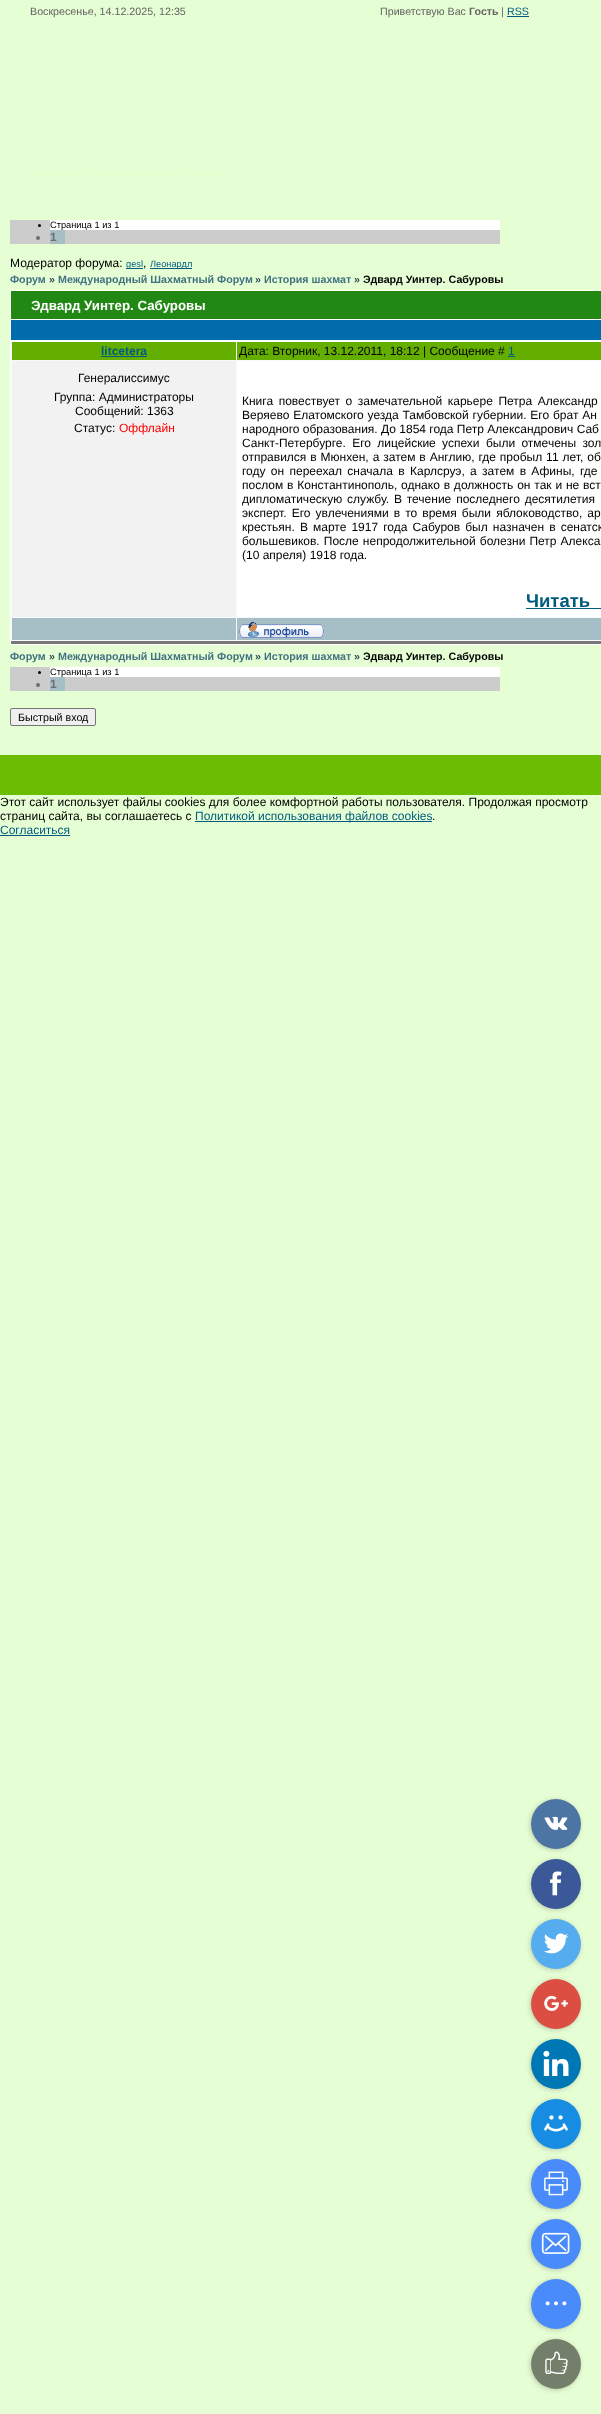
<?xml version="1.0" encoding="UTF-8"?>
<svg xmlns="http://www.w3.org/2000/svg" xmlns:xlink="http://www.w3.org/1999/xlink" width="601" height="2414">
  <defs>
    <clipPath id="clip1"><path d="M 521 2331 h 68 v 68 h -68 z m 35 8 c 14 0 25 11 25 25 c 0 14 -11 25 -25 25 c -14 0 -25 -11 -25 -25 c 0 -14 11 -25 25 -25 z" clip-rule="evenodd" /></clipPath>
  </defs>
  <rect width="100%" height="100%" fill="#e6fed4" />
  <rect x="507" y="16" width="22" height="1" fill="#005b7f" />
  <rect x="30" y="173" width="54" height="1" fill="#e4ffbd" />
  <rect x="95" y="173" width="83" height="1" fill="#e4ffbd" />
  <rect x="189" y="173" width="33" height="1" fill="#e4ffbd" />
  <rect x="10" y="220" width="490" height="24" fill="#cccccc" />
  <rect x="50" y="220" width="450" height="10" fill="#ffffff" />
  <circle cx="39.5" cy="225.5" r="1.5" fill="#000000" />
  <rect x="50" y="230" width="15" height="14" fill="#a6bec6" />
  <circle cx="38" cy="238" r="2" fill="#6e6e6e" />
  <rect x="126" y="268" width="17" height="1" fill="#005b7f" />
  <rect x="150" y="268" width="42" height="1" fill="#005b7f" />
  <rect x="10" y="290" width="591" height="355" fill="#ffffff" />
  <rect x="11" y="291" width="590" height="28" fill="#218814" />
  <rect x="11" y="320" width="590" height="20" fill="#016cac" />
  <rect x="11" y="341" width="590" height="300" fill="#f8f9fa" />
  <rect x="11" y="641" width="590" height="3" fill="#787878" />
  <rect x="12" y="342" width="224" height="18" fill="#64ae00" />
  <rect x="101" y="356" width="46" height="1" fill="#005b7f" />
  <rect x="237" y="342" width="364" height="18" fill="#64ae00" />
  <rect x="508" y="356" width="7" height="1" fill="#005b7f" />
  <rect x="12" y="361" width="224" height="256" fill="#f2f2f2" />
  <rect x="237" y="361" width="364" height="256" fill="#ffffff" />
  <rect x="526" y="608" width="75" height="1" fill="#005b7f" />
  <rect x="12" y="618" width="224" height="22" fill="#a6bec6" />
  <rect x="237" y="618" width="364" height="22" fill="#a6bec6" />
  <image x="239" y="622" width="85" height="16" xlink:href="image1.png" />
  <rect x="10" y="667" width="490" height="24" fill="#cccccc" />
  <rect x="50" y="667" width="450" height="10" fill="#ffffff" />
  <circle cx="39.5" cy="672.5" r="1.5" fill="#000000" />
  <rect x="50" y="677" width="15" height="14" fill="#a6bec6" />
  <circle cx="38" cy="685" r="2" fill="#6e6e6e" />
  <rect x="10.5" y="708.5" width="85" height="17" rx="1.5" fill="#efefef" stroke="#767676" />
  <rect y="755" width="601" height="40" fill="#6bbd03" />
  <rect x="195" y="821" width="237" height="1" fill="#005b7f" />
  <rect y="835" width="70" height="1" fill="#005b7f" />
  <rect x="530" y="1800" width="50" height="50" rx="25" fill="#000000" fill-opacity="0.2" filter="blur(2.5px)" />
  <circle cx="556" cy="1824" r="25" fill="#4d75a3" />
  <image x="544" y="1816" width="24" height="14" xlink:href="image2.png" />
  <rect x="530" y="1860" width="50" height="50" rx="25" fill="#000000" fill-opacity="0.2" filter="blur(2.5px)" />
  <circle cx="556" cy="1884" r="25" fill="#3b5998" />
  <image x="550" y="1871" width="12" height="25" xlink:href="image3.png" />
  <rect x="530" y="1920" width="50" height="50" rx="25" fill="#000000" fill-opacity="0.2" filter="blur(2.5px)" />
  <circle cx="556" cy="1944" r="25" fill="#55acee" />
  <image x="544" y="1933" width="25" height="21" xlink:href="image4.png" />
  <rect x="530" y="1980" width="50" height="50" rx="25" fill="#000000" fill-opacity="0.2" filter="blur(2.5px)" />
  <circle cx="556" cy="2004" r="25" fill="#dc4e41" />
  <image x="544" y="1995" width="24" height="16" xlink:href="image5.png" />
  <rect x="530" y="2040" width="50" height="50" rx="25" fill="#000000" fill-opacity="0.2" filter="blur(2.5px)" />
  <circle cx="556" cy="2064" r="25" fill="#0077b5" />
  <image x="543" y="2050" width="26" height="26" xlink:href="image6.png" />
  <rect x="530" y="2100" width="50" height="50" rx="25" fill="#000000" fill-opacity="0.2" filter="blur(2.5px)" />
  <circle cx="556" cy="2124" r="25" fill="#168de2" />
  <image x="544" y="2115" width="24" height="17" xlink:href="image7.png" />
  <rect x="530" y="2160" width="50" height="50" rx="25" fill="#000000" fill-opacity="0.2" filter="blur(2.5px)" />
  <circle cx="556" cy="2184" r="25" fill="#498bfa" />
  <image x="544" y="2171" width="24" height="25" xlink:href="image8.png" />
  <rect x="530" y="2220" width="50" height="50" rx="25" fill="#000000" fill-opacity="0.2" filter="blur(2.5px)" />
  <circle cx="556" cy="2244" r="25" fill="#498bfa" />
  <image x="541" y="2232" width="29" height="22" xlink:href="image9.png" />
  <rect x="530" y="2280" width="50" height="50" rx="25" fill="#000000" fill-opacity="0.2" filter="blur(2.5px)" />
  <circle cx="556" cy="2304" r="25" fill="#498bfa" />
  <image x="545" y="2301" width="22" height="5" xlink:href="image10.png" />
  <g clip-path="url(#clip1)">
    <rect x="530" y="2340" width="50" height="50" rx="25" fill="#000000" fill-opacity="0.2" filter="blur(2.5px)" />
  </g>
  <circle cx="556" cy="2364" r="25" fill="#000000" fill-opacity="0.5" />
  <image x="545" y="2351" width="23" height="23" xlink:href="image11.png" />
  <text x="30" y="15" style="font-family: Liberation Sans; font-size: 10.7px; fill: #636363">Воскресенье, 14.12.2025, 12:35</text>
  <text x="380" y="15" style="font-family: Liberation Sans; font-size: 10.7px; fill: #636363">Приветствую Вас</text>
  <text x="469" y="15" style="font-family: Liberation Sans; font-size: 10.7px; font-weight: bold; fill: #636363">Гость</text>
  <text x="501" y="15" style="font-family: Liberation Sans; font-size: 10.7px; fill: #636363">|</text>
  <text x="507" y="15" style="font-family: Liberation Sans; font-size: 10.7px; fill: #005b7f">RSS</text>
  <text x="50" y="228" style="font-family: Liberation Sans; font-size: 9.25px; fill: #000000">Страница 1 из 1</text>
  <text x="50" y="241" style="font-family: Liberation Sans; font-size: 12px; font-weight: bold; fill: #6e6e6e">1</text>
  <text x="10" y="267" style="font-family: Liberation Sans; font-size: 12px; fill: #000000">Модератор форума:</text>
  <text x="126" y="267" style="font-family: Liberation Sans; font-size: 9.25px; fill: #005b7f">gesl</text>
  <text x="143" y="267" style="font-family: Liberation Sans; font-size: 12px; fill: #000000">,</text>
  <text x="150" y="267" style="font-family: Liberation Sans; font-size: 9.25px; fill: #005b7f">Леонардл</text>
  <text x="10" y="283" style="font-family: Liberation Sans; font-size: 10.7px; font-weight: bold; fill: #427181">Форум</text>
  <text x="49" y="283" style="font-family: Liberation Sans; font-size: 10.7px; font-weight: bold; fill: #2f515c">»</text>
  <text x="58" y="283" style="font-family: Liberation Sans; font-size: 10.7px; font-weight: bold; fill: #427181">Международный Шахматный Форум</text>
  <text x="255" y="283" style="font-family: Liberation Sans; font-size: 10.7px; font-weight: bold; fill: #2f515c">»</text>
  <text x="264" y="283" style="font-family: Liberation Sans; font-size: 10.7px; font-weight: bold; fill: #427181">История шахмат</text>
  <text x="354" y="283" style="font-family: Liberation Sans; font-size: 10.7px; font-weight: bold; fill: #2f515c">»</text>
  <text x="363" y="283" style="font-family: Liberation Sans; font-size: 10.7px; font-weight: bold; fill: #000000">Эдвард Уинтер. Сабуровы</text>
  <text x="31" y="310" style="font-family: Liberation Sans; font-size: 13.3px; font-weight: bold; fill: #ffffff">Эдвард Уинтер. Сабуровы</text>
  <text x="101" y="355" style="font-family: Liberation Sans; font-size: 12px; font-weight: bold; fill: #005b7f">litcetera</text>
  <text x="239" y="355" style="font-family: Liberation Sans; font-size: 12px; fill: #000000">Дата: Вторник, 13.12.2011, 18:12 | Сообщение #</text>
  <text x="508" y="355" style="font-family: Liberation Sans; font-size: 12px; fill: #005b7f">1</text>
  <text x="78" y="382" style="font-family: Liberation Sans; font-size: 12px; fill: #000000">Генералиссимус</text>
  <text x="54" y="401" style="font-family: Liberation Sans; font-size: 12px; fill: #000000">Группа: Администраторы</text>
  <text x="75" y="415" style="font-family: Liberation Sans; font-size: 12px; fill: #000000">Сообщений: 1363</text>
  <text x="74" y="432" style="font-family: Liberation Sans; font-size: 12px; fill: #000000">Статус:</text>
  <text x="119" y="432" style="font-family: Liberation Sans; font-size: 12px; fill: #ff0000">Оффлайн</text>
  <text x="242" y="405" word-spacing="2.25" style="font-family: Liberation Sans; font-size: 12px; fill: #000000">Книга повествует о замечательной карьере Петра Александр</text>
  <text x="242" y="419" word-spacing="0.5" style="font-family: Liberation Sans; font-size: 12px; fill: #000000">Веряево Елатомского уезда Тамбовской губернии. Его брат Ан</text>
  <text x="242" y="433" style="font-family: Liberation Sans; font-size: 12px; fill: #000000">народного образования. До 1854 года Петр Александрович Саб</text>
  <text x="242" y="447" word-spacing="3" style="font-family: Liberation Sans; font-size: 12px; fill: #000000">Санкт-Петербурге. Его лицейские успехи были отмечены зол</text>
  <text x="242" y="461" word-spacing="0.6" style="font-family: Liberation Sans; font-size: 12px; fill: #000000">отправился в Мюнхен, а затем в Англию, где пробыл 11 лет, об</text>
  <text x="242" y="475" word-spacing="2" style="font-family: Liberation Sans; font-size: 12px; fill: #000000">году он переехал сначала в Карлсруэ, а затем в Афины, где</text>
  <text x="242" y="489" word-spacing="0.5" style="font-family: Liberation Sans; font-size: 12px; fill: #000000">послом в Константинополь, однако в должность он так и не вст</text>
  <text x="242" y="503" word-spacing="1.5" style="font-family: Liberation Sans; font-size: 12px; fill: #000000">дипломатическую службу. В течение последнего десятилетия</text>
  <text x="242" y="517" word-spacing="1.75" style="font-family: Liberation Sans; font-size: 12px; fill: #000000">эксперт. Его увлечениями в то время были яблоководство, ар</text>
  <text x="242" y="531" word-spacing="1.75" style="font-family: Liberation Sans; font-size: 12px; fill: #000000">крестьян. В марте 1917 года Сабуров был назначен в сенатск</text>
  <text x="242" y="545" word-spacing="0.75" style="font-family: Liberation Sans; font-size: 12px; fill: #000000">большевиков. После непродолжительной болезни Петр Алекса</text>
  <text x="242" y="559" style="font-family: Liberation Sans; font-size: 12px; fill: #000000">(10 апреля) 1918 года.</text>
  <text x="526" y="607" style="font-family: Liberation Sans; font-size: 18.5px; font-weight: bold; fill: #005b7f">Читать</text>
  <text x="10" y="660" style="font-family: Liberation Sans; font-size: 10.7px; font-weight: bold; fill: #427181">Форум</text>
  <text x="49" y="660" style="font-family: Liberation Sans; font-size: 10.7px; font-weight: bold; fill: #2f515c">»</text>
  <text x="58" y="660" style="font-family: Liberation Sans; font-size: 10.7px; font-weight: bold; fill: #427181">Международный Шахматный Форум</text>
  <text x="255" y="660" style="font-family: Liberation Sans; font-size: 10.7px; font-weight: bold; fill: #2f515c">»</text>
  <text x="264" y="660" style="font-family: Liberation Sans; font-size: 10.7px; font-weight: bold; fill: #427181">История шахмат</text>
  <text x="354" y="660" style="font-family: Liberation Sans; font-size: 10.7px; font-weight: bold; fill: #2f515c">»</text>
  <text x="363" y="660" style="font-family: Liberation Sans; font-size: 10.7px; font-weight: bold; fill: #000000">Эдвард Уинтер. Сабуровы</text>
  <text x="50" y="675" style="font-family: Liberation Sans; font-size: 9.25px; fill: #000000">Страница 1 из 1</text>
  <text x="50" y="688" style="font-family: Liberation Sans; font-size: 12px; font-weight: bold; fill: #6e6e6e">1</text>
  <text x="18" y="721" style="font-family: Liberation Sans; font-size: 10.7px; fill: #000000">Быстрый вход</text>
  <text x="0" y="806" style="font-family: Liberation Sans; font-size: 12px; fill: #000000">Этот сайт использует файлы cookies для более комфортной работы пользователя. Продолжая просмотр</text>
  <text x="0" y="820" style="font-family: Liberation Sans; font-size: 12px; fill: #000000">страниц сайта, вы соглашаетесь с</text>
  <text x="195" y="820" style="font-family: Liberation Sans; font-size: 12px; fill: #005b7f">Политикой использования файлов cookies</text>
  <text x="432" y="820" style="font-family: Liberation Sans; font-size: 12px; fill: #000000">.</text>
  <text x="0" y="834" style="font-family: Liberation Sans; font-size: 12px; fill: #005b7f">Согласиться</text>
</svg>
